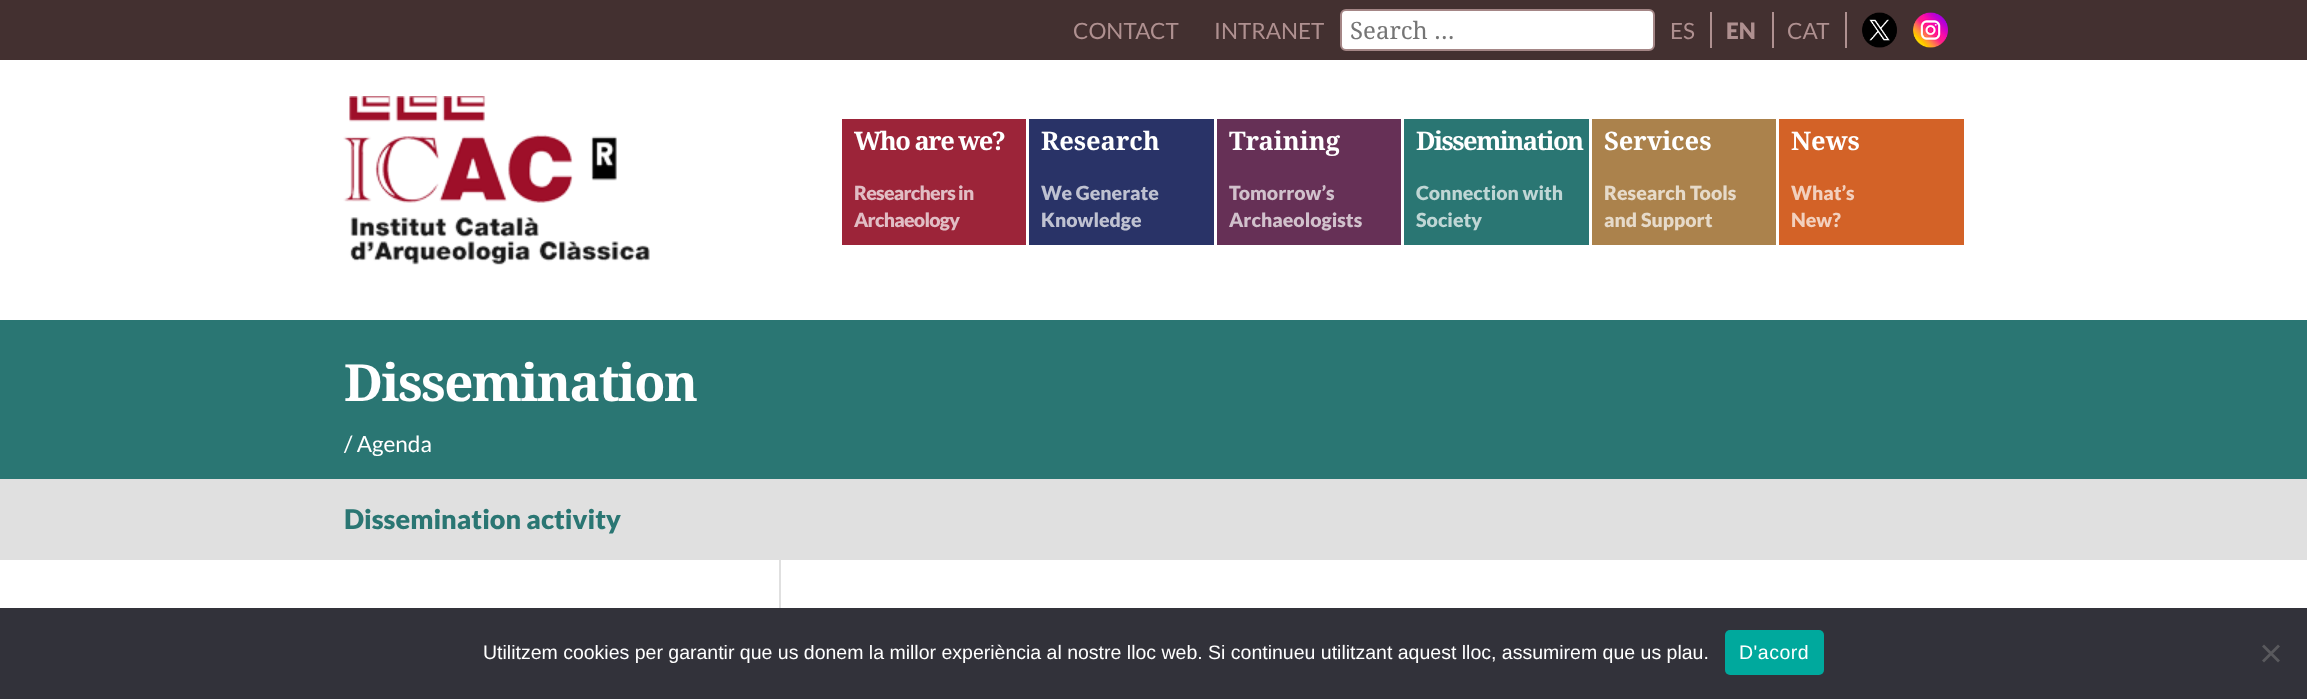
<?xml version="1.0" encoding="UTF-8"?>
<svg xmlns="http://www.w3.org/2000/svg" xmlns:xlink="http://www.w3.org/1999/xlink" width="2307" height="699">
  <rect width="100%" height="100%" fill="#ffffff" />
  <rect width="2307" height="60" fill="#433030" />
  <rect x="1341" y="10" width="313" height="40" rx="5" fill="#ffffff" stroke="#a48686" stroke-width="2" />
  <rect x="1710" y="12" width="2" height="36" fill="#af9090" />
  <rect x="1772" y="12" width="2" height="36" fill="#af9090" />
  <rect x="1845" y="12" width="2" height="36" fill="#af9090" />
  <image x="1862" y="12" width="35" height="36" xlink:href="image1.png" />
  <image x="1913" y="12" width="35" height="36" xlink:href="image2.png" />
  <image x="343" y="96" width="307" height="169" xlink:href="image3.png" />
  <rect x="842" y="119" width="184" height="126" fill="#9c2439" />
  <rect x="1029" y="119" width="185" height="126" fill="#293367" />
  <rect x="1217" y="119" width="184" height="126" fill="#663056" />
  <rect x="1404" y="119" width="185" height="126" fill="#2a7673" />
  <rect x="1592" y="119" width="184" height="126" fill="#ab824c" />
  <rect x="1779" y="119" width="185" height="126" fill="#d36227" />
  <rect y="320" width="2307" height="159" fill="#2a7673" />
  <rect y="479" width="2307" height="81" fill="#e0e0e0" />
  <rect x="779" y="560" width="2" height="48" fill="#e0e0e0" />
  <rect y="608" width="2307" height="91" fill="#32323a" />
  <rect x="1725" y="630" width="99" height="45" rx="5" fill="#00a99d" />
  <path d="M 2278 644.5 l 2 2 l -16 16 l -2 -2 z" fill="#59595d" />
  <path d="M 2262 646.5 l 2 -2 l 16 16 l -2 2 z" fill="#59595d" />
  <text x="1073" y="39" style="font-family: Lato; font-size: 22.5px; fill: #af9090">CONTACT</text>
  <text x="1214" y="39" style="font-family: Lato; font-size: 22.5px; fill: #af9090">INTRANET</text>
  <text x="1350" y="39" style="font-family: Noto Serif; font-size: 24px; fill: #757575">Search …</text>
  <text x="1670" y="39" style="font-family: Lato; font-size: 22.5px; fill: #af9090">ES</text>
  <text x="1726" y="39" style="font-family: Lato; font-size: 22.5px; font-weight: 900; fill: #af9090">EN</text>
  <text x="1787" y="39" style="font-family: Lato; font-size: 22.5px; fill: #af9090">CAT</text>
  <text x="854" y="150" style="font-family: Noto Serif; font-size: 25.5px; font-weight: bold; letter-spacing: -1.5px; fill: #ffffff">Who are we?</text>
  <text x="854" y="200" style="font-family: Lato; font-size: 19.5px; font-weight: 900; letter-spacing: -0.75px; fill: #e1bdc4">Researchers in</text>
  <text x="854" y="227" style="font-family: Lato; font-size: 19.5px; font-weight: 900; letter-spacing: -0.75px; fill: #e1bdc4">Archaeology</text>
  <text x="1041" y="150" style="font-family: Noto Serif; font-size: 25.5px; font-weight: bold; fill: #ffffff">Research</text>
  <text x="1041" y="200" style="font-family: Lato; font-size: 19.5px; font-weight: 900; fill: #bfc2d1">We Generate</text>
  <text x="1041" y="227" style="font-family: Lato; font-size: 19.5px; font-weight: 900; fill: #bfc2d1">Knowledge</text>
  <text x="1229" y="150" style="font-family: Noto Serif; font-size: 25.5px; font-weight: bold; fill: #ffffff">Training</text>
  <text x="1229" y="200" style="font-family: Lato; font-size: 19.5px; font-weight: 900; fill: #d1c1cc">Tomorrow’s</text>
  <text x="1229" y="227" style="font-family: Lato; font-size: 19.5px; font-weight: 900; fill: #d1c1cc">Archaeologists</text>
  <text x="1416" y="150" style="font-family: Noto Serif; font-size: 25.5px; font-weight: bold; letter-spacing: -1.5px; fill: #ffffff">Dissemination</text>
  <text x="1416" y="200" style="font-family: Lato; font-size: 19.5px; font-weight: 900; fill: #bfd6d5">Connection with</text>
  <text x="1416" y="227" style="font-family: Lato; font-size: 19.5px; font-weight: 900; fill: #bfd6d5">Society</text>
  <text x="1604" y="150" style="font-family: Noto Serif; font-size: 25.5px; font-weight: bold; fill: #ffffff">Services</text>
  <text x="1604" y="200" style="font-family: Lato; font-size: 19.5px; font-weight: 900; fill: #e6dac9">Research Tools</text>
  <text x="1604" y="227" style="font-family: Lato; font-size: 19.5px; font-weight: 900; fill: #e6dac9">and Support</text>
  <text x="1791" y="150" style="font-family: Noto Serif; font-size: 25.5px; font-weight: bold; fill: #ffffff">News</text>
  <text x="1791" y="200" style="font-family: Lato; font-size: 19.5px; font-weight: 900; fill: #f2d0be">What’s</text>
  <text x="1791" y="227" style="font-family: Lato; font-size: 19.5px; font-weight: 900; fill: #f2d0be">New?</text>
  <text x="344" y="401" style="font-family: Noto Serif; font-size: 51px; font-weight: bold; letter-spacing: -1.5px; fill: #ffffff">Dissemination</text>
  <text x="344" y="452" style="font-family: Lato; font-size: 22.5px; fill: #ffffff">/ Agenda</text>
  <text x="344" y="529" style="font-family: Lato; font-size: 27px; font-weight: 900; fill: #2a7673">Dissemination activity</text>
  <text x="483" y="659" style="font-family: Liberation Sans; font-size: 19.5px; fill: #ffffff">Utilitzem cookies per garantir que us donem la millor experiència al nostre lloc web. Si continueu utilitzant aquest lloc, assumirem que us plau.</text>
  <text x="1739" y="659" style="font-family: Liberation Sans; font-size: 19.5px; letter-spacing: 0.5px; fill: #ffffff">D'acord</text>
</svg>
